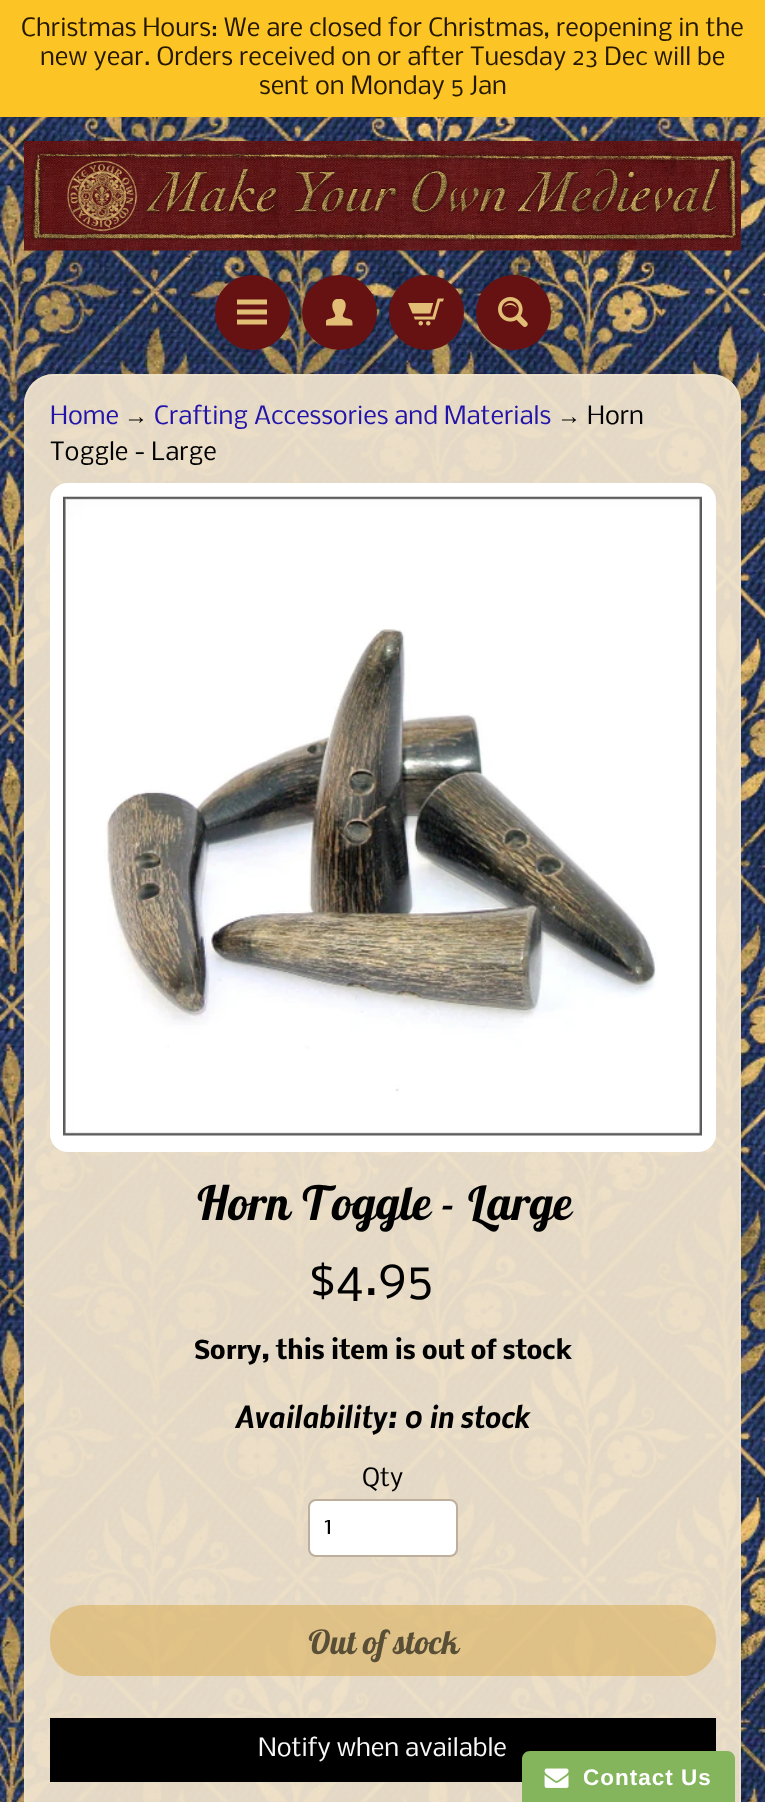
<?xml version="1.0" encoding="UTF-8"?>
<svg xmlns="http://www.w3.org/2000/svg" xmlns:xlink="http://www.w3.org/1999/xlink" width="765" height="1802">
  <style>*{font-kerning:none!important;font-variant-ligatures:none!important}</style>
  <rect width="100%" height="100%" fill="#ffffff" />
  <image x="0" y="117" width="765" height="1685" xlink:href="image1.png" />
  <rect width="765" height="117" fill="#fdc425" />
  <image x="24" y="141" width="717" height="110" xlink:href="image2.png" />
  <circle cx="252.5" cy="312.5" r="35" fill="#661212" stroke="#661212" stroke-width="5" />
  <image x="237" y="299" width="30" height="26" xlink:href="image3.png" />
  <circle cx="339.5" cy="312.5" r="35" fill="#661212" stroke="#661212" stroke-width="5" />
  <image x="326" y="299" width="27" height="27" xlink:href="image4.png" />
  <circle cx="426.5" cy="312.5" r="35" fill="#661212" stroke="#661212" stroke-width="5" />
  <image x="408" y="298" width="36" height="28" xlink:href="image5.png" />
  <circle cx="513.5" cy="312.5" r="35" fill="#661212" stroke="#661212" stroke-width="5" />
  <image x="498" y="297" width="30" height="30" xlink:href="image6.png" />
  <rect x="24" y="374" width="717" height="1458" rx="30" fill="#efe3cc" fill-opacity="0.95" />
  <rect x="25" y="375" width="715" height="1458" rx="29" fill="none" stroke="#efe3cc" stroke-opacity="0.7" stroke-width="2" />
  <rect x="50" y="483" width="666" height="669" rx="18" fill="#ffffff" />
  <image x="63" y="496" width="639" height="640" xlink:href="image7.png" />
  <rect x="309" y="1500" width="148" height="56" rx="7" fill="#ffffff" stroke="#bdaf9b" stroke-width="2" />
  <rect x="50" y="1605" width="666" height="71" rx="33" fill="#dbb15e" fill-opacity="0.6" />
  <rect x="50" y="1718" width="666" height="64" fill="#000000" />
  <path d="M 530 1751 h 197 c 4.5 0 8 3.5 8 8 v 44 h -213 v -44 c 0 -4.5 3.5 -8 8 -8 z" fill="#84b45b" />
  <image x="544" y="1768" width="25" height="20" xlink:href="image8.png" />
  <text x="21" y="36" style="font-family: Nobile; font-size: 24px; fill: #251800">Christmas Hours: We are closed for Christmas, reopening in the</text>
  <text x="40" y="65" style="font-family: Nobile; font-size: 24px; fill: #251800">new year. Orders received on or after Tuesday 23 Dec will be</text>
  <text x="259" y="94" style="font-family: Nobile; font-size: 24px; fill: #251800">sent on Monday 5 Jan</text>
  <text x="50" y="424" style="font-family: Nobile; font-size: 24px; fill: #2214a8">Home</text>
  <text x="124" y="424" style="font-family: Liberation Sans; font-size: 24px; fill: #000000">→</text>
  <text x="154" y="424" style="font-family: Nobile; font-size: 24px; fill: #2214a8">Crafting Accessories and Materials</text>
  <text x="557" y="424" style="font-family: Liberation Sans; font-size: 24px; fill: #000000">→</text>
  <text x="587" y="424" style="font-family: Nobile; font-size: 24px; fill: #000000">Horn</text>
  <text x="50" y="460" style="font-family: Nobile; font-size: 24px; fill: #000000">Toggle - Large</text>
  <text x="195" y="1220" style="font-family: Lobster Two; font-size: 47px; font-weight: bold; font-style: italic; fill: #000000">Horn Toggle - Large</text>
  <text x="309" y="1295" style="font-family: Nobile; font-size: 48px; fill: #000000">$4.95</text>
  <text x="194" y="1359" style="font-family: Nobile; font-size: 24px; font-weight: bold; fill: #000000">Sorry, this item is out of stock</text>
  <text x="235" y="1428" style="font-family: Nobile; font-size: 28.75px; font-weight: bold; font-style: italic; fill: #000000">Availability: 0 in stock</text>
  <text x="362" y="1486" style="font-family: Nobile; font-size: 24px; fill: #000000">Qty</text>
  <text x="324" y="1534" style="font-family: Nobile; font-size: 24px; fill: #000000">1</text>
  <text x="307" y="1654" style="font-family: Lobster Two; font-size: 33px; font-weight: bold; font-style: italic; fill: #594e36">Out of stock</text>
  <text x="258" y="1756" style="font-family: Nobile; font-size: 24px; fill: #f8f8f8">Notify when available</text>
  <text x="583" y="1785" style="font-family: Liberation Sans; font-size: 22.5px; font-weight: bold; letter-spacing: 1px; fill: #ffffff">Contact Us</text>
</svg>
